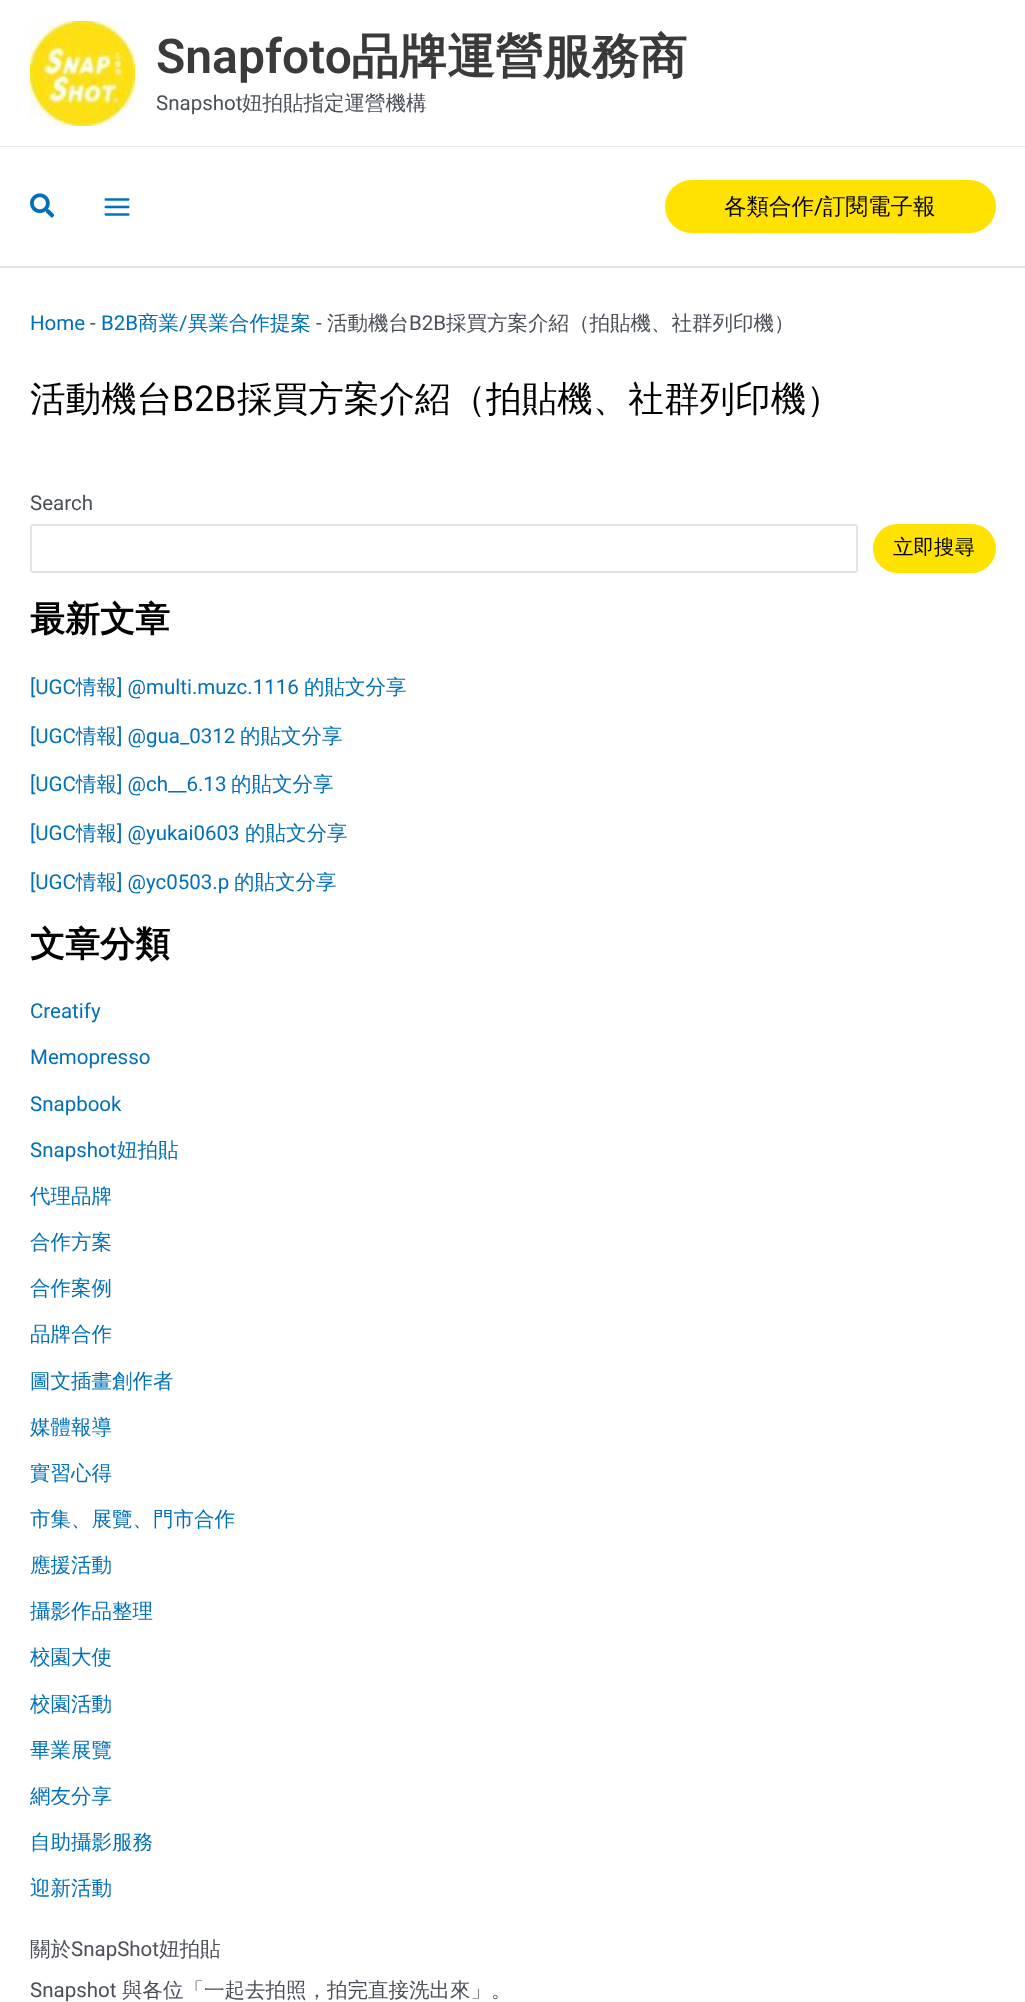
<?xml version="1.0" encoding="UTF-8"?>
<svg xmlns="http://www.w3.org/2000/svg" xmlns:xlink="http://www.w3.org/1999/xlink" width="1025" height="2002">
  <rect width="100%" height="100%" fill="#ffffff" />
  <rect y="146" width="1025" height="1" fill="#e5e5e5" />
  <image x="30" y="21" width="105" height="105" xlink:href="image1.png" />
  <rect y="266" width="1025" height="2" fill="#e5e5e5" />
  <image x="30" y="193" width="24" height="25" xlink:href="image2.png" />
  <image x="104" y="198" width="26" height="18" xlink:href="image3.png" />
  <rect x="665" y="180" width="331" height="53" rx="26.5" fill="#ffe200" />
  <rect x="31" y="525" width="826" height="47" rx="2" fill="none" stroke="#e5e5e5" stroke-width="2" />
  <rect x="873" y="524" width="123" height="49" rx="24.5" fill="#ffe200" />
  <text x="156" y="73" style="font-family: Roboto; font-size: 48px; font-weight: 600; fill: #3a3a3a">Snapfoto</text>
  <text x="351" y="73" style="font-family: WenQuanYi Zen Hei; font-size: 48px; font-weight: bold; fill: #3a3a3a">品牌運營服務商</text>
  <text x="156" y="110" style="font-family: Roboto; font-size: 20.5px; fill: #4b4f58">Snapshot</text>
  <text x="242" y="110" style="font-family: WenQuanYi Zen Hei; font-size: 20.5px; font-weight: 500; fill: #4b4f58">妞拍貼指定運營機構</text>
  <text x="724" y="214" style="font-family: WenQuanYi Zen Hei; font-size: 22.5px; font-weight: 500; fill: #000000">各類合作</text>
  <text x="814" y="214" style="font-family: Roboto; font-size: 22.5px; fill: #000000">/</text>
  <text x="823" y="214" style="font-family: WenQuanYi Zen Hei; font-size: 22.5px; font-weight: 500; fill: #000000">訂閱電子報</text>
  <text x="30" y="330" style="font-family: Roboto; font-size: 20.5px; fill: #0170b9">Home</text>
  <text x="90" y="330" style="font-family: Roboto; font-size: 20.5px; fill: #4b4f58">-</text>
  <text x="101" y="330" style="font-family: Roboto; font-size: 20.5px; fill: #0170b9">B2B</text>
  <text x="138" y="330" style="font-family: WenQuanYi Zen Hei; font-size: 20.5px; font-weight: 500; fill: #0170b9">商業</text>
  <text x="179" y="330" style="font-family: Roboto; font-size: 20.5px; fill: #0170b9">/</text>
  <text x="188" y="330" style="font-family: WenQuanYi Zen Hei; font-size: 20.5px; font-weight: 500; fill: #0170b9">異業合作提案</text>
  <text x="316" y="330" style="font-family: Roboto; font-size: 20.5px; fill: #4b4f58">-</text>
  <text x="327" y="330" style="font-family: WenQuanYi Zen Hei; font-size: 20.5px; font-weight: 500; fill: #4b4f58">活動機台</text>
  <text x="409" y="330" style="font-family: Roboto; font-size: 20.5px; fill: #4b4f58">B2B</text>
  <text x="446" y="330" style="font-family: WenQuanYi Zen Hei; font-size: 20.5px; font-weight: 500; fill: #4b4f58">採買方案介紹（拍貼機、社群列印機）</text>
  <text x="30" y="411" style="font-family: WenQuanYi Zen Hei; font-size: 35.6px; font-weight: 500; fill: #000000">活動機台</text>
  <text x="172" y="411" style="font-family: Roboto; font-size: 35.6px; fill: #000000">B2B</text>
  <text x="237" y="411" style="font-family: WenQuanYi Zen Hei; font-size: 35.6px; font-weight: 500; fill: #000000">採買方案介紹（拍貼機、社群列印機）</text>
  <text x="30" y="510" style="font-family: Roboto; font-size: 20.5px; fill: #4b4f58">Search</text>
  <text x="893" y="554" style="font-family: WenQuanYi Zen Hei; font-size: 20.5px; font-weight: 500; fill: #000000">立即搜尋</text>
  <text x="30" y="631" style="font-family: WenQuanYi Zen Hei; font-size: 35px; font-weight: bold; fill: #000000">最新文章</text>
  <text x="30" y="694" style="font-family: Roboto; font-size: 20.5px; fill: #0170b9">[UGC</text>
  <text x="76" y="694" style="font-family: WenQuanYi Zen Hei; font-size: 20.5px; font-weight: 500; fill: #0170b9">情報</text>
  <text x="117" y="694" style="font-family: Roboto; font-size: 20.5px; fill: #0170b9">] @multi.muzc.1116</text>
  <text x="304" y="694" style="font-family: WenQuanYi Zen Hei; font-size: 20.5px; font-weight: 500; fill: #0170b9">的貼文分享</text>
  <text x="30" y="743" style="font-family: Roboto; font-size: 20.5px; fill: #0170b9">[UGC</text>
  <text x="76" y="743" style="font-family: WenQuanYi Zen Hei; font-size: 20.5px; font-weight: 500; fill: #0170b9">情報</text>
  <text x="117" y="743" style="font-family: Roboto; font-size: 20.5px; fill: #0170b9">] @gua_0312</text>
  <text x="240" y="743" style="font-family: WenQuanYi Zen Hei; font-size: 20.5px; font-weight: 500; fill: #0170b9">的貼文分享</text>
  <text x="30" y="791" style="font-family: Roboto; font-size: 20.5px; fill: #0170b9">[UGC</text>
  <text x="76" y="791" style="font-family: WenQuanYi Zen Hei; font-size: 20.5px; font-weight: 500; fill: #0170b9">情報</text>
  <text x="117" y="791" style="font-family: Roboto; font-size: 20.5px; fill: #0170b9">] @ch__6.13</text>
  <text x="231" y="791" style="font-family: WenQuanYi Zen Hei; font-size: 20.5px; font-weight: 500; fill: #0170b9">的貼文分享</text>
  <text x="30" y="840" style="font-family: Roboto; font-size: 20.5px; fill: #0170b9">[UGC</text>
  <text x="76" y="840" style="font-family: WenQuanYi Zen Hei; font-size: 20.5px; font-weight: 500; fill: #0170b9">情報</text>
  <text x="117" y="840" style="font-family: Roboto; font-size: 20.5px; fill: #0170b9">] @yukai0603</text>
  <text x="245" y="840" style="font-family: WenQuanYi Zen Hei; font-size: 20.5px; font-weight: 500; fill: #0170b9">的貼文分享</text>
  <text x="30" y="889" style="font-family: Roboto; font-size: 20.5px; fill: #0170b9">[UGC</text>
  <text x="76" y="889" style="font-family: WenQuanYi Zen Hei; font-size: 20.5px; font-weight: 500; fill: #0170b9">情報</text>
  <text x="117" y="889" style="font-family: Roboto; font-size: 20.5px; fill: #0170b9">] @yc0503.p</text>
  <text x="234" y="889" style="font-family: WenQuanYi Zen Hei; font-size: 20.5px; font-weight: 500; fill: #0170b9">的貼文分享</text>
  <text x="30" y="956" style="font-family: WenQuanYi Zen Hei; font-size: 35px; font-weight: bold; fill: #000000">文章分類</text>
  <text x="30" y="1018" style="font-family: Roboto; font-size: 20.5px; fill: #0170b9">Creatify</text>
  <text x="30" y="1064" style="font-family: Roboto; font-size: 20.5px; fill: #0170b9">Memopresso</text>
  <text x="30" y="1111" style="font-family: Roboto; font-size: 20.5px; fill: #0170b9">Snapbook</text>
  <text x="30" y="1157" style="font-family: Roboto; font-size: 20.5px; fill: #0170b9">Snapshot</text>
  <text x="117" y="1157" style="font-family: WenQuanYi Zen Hei; font-size: 20.5px; font-weight: 500; fill: #0170b9">妞拍貼</text>
  <text x="30" y="1203" style="font-family: WenQuanYi Zen Hei; font-size: 20.5px; font-weight: 500; fill: #0170b9">代理品牌</text>
  <text x="30" y="1249" style="font-family: WenQuanYi Zen Hei; font-size: 20.5px; font-weight: 500; fill: #0170b9">合作方案</text>
  <text x="30" y="1295" style="font-family: WenQuanYi Zen Hei; font-size: 20.5px; font-weight: 500; fill: #0170b9">合作案例</text>
  <text x="30" y="1341" style="font-family: WenQuanYi Zen Hei; font-size: 20.5px; font-weight: 500; fill: #0170b9">品牌合作</text>
  <text x="30" y="1388" style="font-family: WenQuanYi Zen Hei; font-size: 20.5px; font-weight: 500; fill: #0170b9">圖文插畫創作者</text>
  <text x="30" y="1434" style="font-family: WenQuanYi Zen Hei; font-size: 20.5px; font-weight: 500; fill: #0170b9">媒體報導</text>
  <text x="30" y="1480" style="font-family: WenQuanYi Zen Hei; font-size: 20.5px; font-weight: 500; fill: #0170b9">實習心得</text>
  <text x="30" y="1526" style="font-family: WenQuanYi Zen Hei; font-size: 20.5px; font-weight: 500; fill: #0170b9">市集、展覽、門市合作</text>
  <text x="30" y="1572" style="font-family: WenQuanYi Zen Hei; font-size: 20.5px; font-weight: 500; fill: #0170b9">應援活動</text>
  <text x="30" y="1618" style="font-family: WenQuanYi Zen Hei; font-size: 20.5px; font-weight: 500; fill: #0170b9">攝影作品整理</text>
  <text x="30" y="1664" style="font-family: WenQuanYi Zen Hei; font-size: 20.5px; font-weight: 500; fill: #0170b9">校園大使</text>
  <text x="30" y="1711" style="font-family: WenQuanYi Zen Hei; font-size: 20.5px; font-weight: 500; fill: #0170b9">校園活動</text>
  <text x="30" y="1757" style="font-family: WenQuanYi Zen Hei; font-size: 20.5px; font-weight: 500; fill: #0170b9">畢業展覽</text>
  <text x="30" y="1803" style="font-family: WenQuanYi Zen Hei; font-size: 20.5px; font-weight: 500; fill: #0170b9">網友分享</text>
  <text x="30" y="1849" style="font-family: WenQuanYi Zen Hei; font-size: 20.5px; font-weight: 500; fill: #0170b9">自助攝影服務</text>
  <text x="30" y="1895" style="font-family: WenQuanYi Zen Hei; font-size: 20.5px; font-weight: 500; fill: #0170b9">迎新活動</text>
  <text x="30" y="1956" style="font-family: WenQuanYi Zen Hei; font-size: 20.5px; font-weight: 500; fill: #4b4f58">關於</text>
  <text x="71" y="1956" style="font-family: Roboto; font-size: 20.5px; fill: #4b4f58">SnapShot</text>
  <text x="159" y="1956" style="font-family: WenQuanYi Zen Hei; font-size: 20.5px; font-weight: 500; fill: #4b4f58">妞拍貼</text>
  <text x="30" y="1997" style="font-family: Roboto; font-size: 20.5px; fill: #4b4f58">Snapshot</text>
  <text x="122" y="1997" style="font-family: WenQuanYi Zen Hei; font-size: 20.5px; font-weight: 500; fill: #4b4f58">與各位「一起去拍照，拍完直接洗出來」。</text>
</svg>
